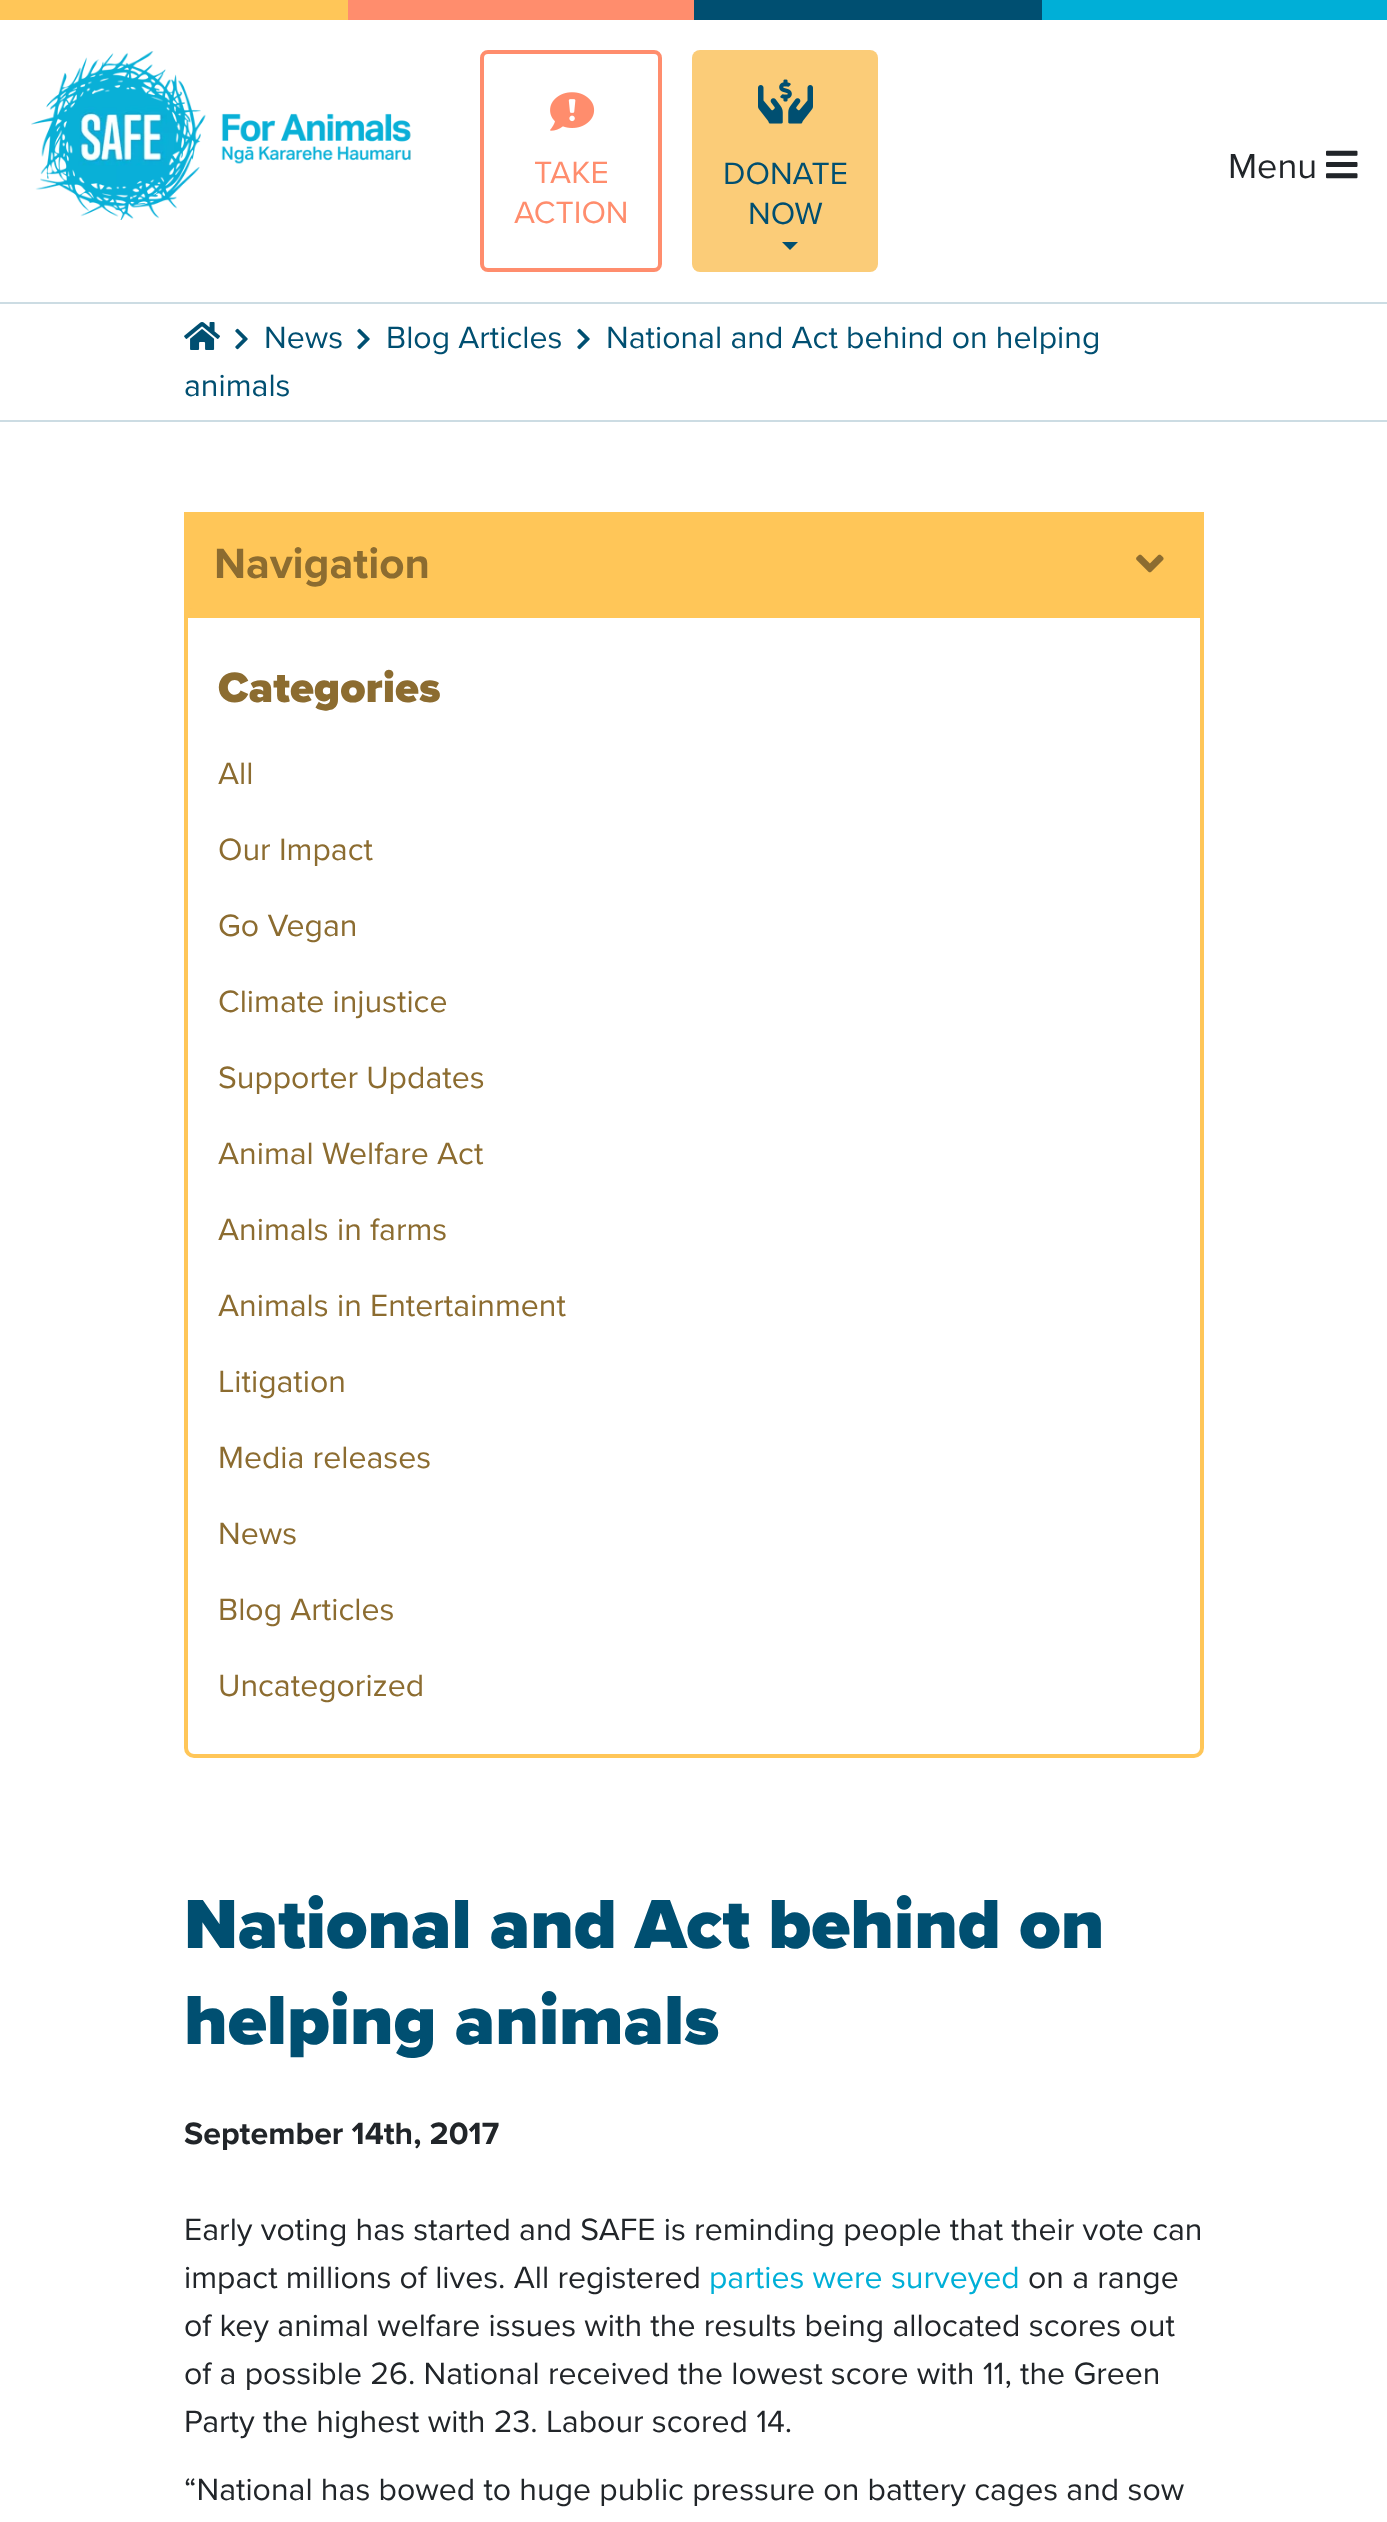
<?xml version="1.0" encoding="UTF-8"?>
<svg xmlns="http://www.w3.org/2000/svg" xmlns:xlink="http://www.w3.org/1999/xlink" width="1387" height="2522">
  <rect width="100%" height="100%" fill="#ffffff" />
  <rect width="348" height="20" fill="#ffc658" />
  <rect x="348" width="346" height="20" fill="#ff8d6d" />
  <rect x="694" width="348" height="20" fill="#004f71" />
  <rect x="1042" width="345" height="20" fill="#00afd7" />
  <image x="31" y="51" width="380" height="169" xlink:href="image1.png" />
  <rect x="482" y="52" width="178" height="218" rx="6" fill="none" stroke="#ff8d6d" stroke-width="4" />
  <image x="550" y="92" width="45" height="39" xlink:href="image2.png" />
  <rect x="692" y="50" width="186" height="222" rx="8" fill="#fbcc78" />
  <image x="758" y="79" width="55" height="45" xlink:href="image3.png" />
  <path d="M 782 242 h 16 l -8 8 z" fill="#004f71" />
  <image x="1326" y="150" width="32" height="29" xlink:href="image4.png" />
  <rect y="302" width="1387" height="2" fill="#ccdce3" />
  <rect y="420" width="1387" height="2" fill="#ccdce3" />
  <image x="184" y="322" width="36" height="28" xlink:href="image5.png" />
  <image x="235" y="328" width="13" height="22" xlink:href="image6.png" />
  <image x="357" y="328" width="13" height="22" xlink:href="image6.png" />
  <image x="577" y="328" width="13" height="22" xlink:href="image6.png" />
  <rect x="184" y="512" width="1020" height="106" fill="#ffc658" />
  <image x="1136" y="554" width="28" height="19" xlink:href="image7.png" />
  <rect x="186" y="610" width="1016" height="1146" rx="8" fill="none" stroke="#ffc658" stroke-width="4" />
  <text x="534" y="183" style="font-family: Proxima Nova; font-size: 32px; fill: #ff8d6d">TAKE</text>
  <text x="514" y="223" style="font-family: Proxima Nova; font-size: 32px; fill: #ff8d6d">ACTION</text>
  <text x="723" y="184" style="font-family: Proxima Nova; font-size: 32px; fill: #004f71">DONATE</text>
  <text x="748" y="224" style="font-family: Proxima Nova; font-size: 32px; fill: #004f71">NOW</text>
  <text x="1228" y="178" style="font-family: Proxima Nova; font-size: 36px; fill: #212529">Menu</text>
  <text x="264" y="348" style="font-family: Proxima Nova; font-size: 32px; fill: #004f71">News</text>
  <text x="386" y="348" style="font-family: Proxima Nova; font-size: 32px; fill: #004f71">Blog Articles</text>
  <text x="606" y="348" style="font-family: Proxima Nova; font-size: 32px; fill: #004f71">National and Act behind on helping</text>
  <text x="184" y="396" style="font-family: Proxima Nova; font-size: 32px; fill: #004f71">animals</text>
  <text x="214" y="578" style="font-family: Proxima Nova; font-size: 44px; font-weight: bold; fill: #8c6c30">Navigation</text>
  <text x="218" y="702" style="font-family: Proxima Nova; font-size: 44px; font-weight: 900; fill: #8c6c30">Categories</text>
  <text x="218" y="784" style="font-family: Proxima Nova; font-size: 32px; fill: #8c6c30">All</text>
  <text x="218" y="860" style="font-family: Proxima Nova; font-size: 32px; fill: #8c6c30">Our Impact</text>
  <text x="218" y="936" style="font-family: Proxima Nova; font-size: 32px; fill: #8c6c30">Go Vegan</text>
  <text x="218" y="1012" style="font-family: Proxima Nova; font-size: 32px; fill: #8c6c30">Climate injustice</text>
  <text x="218" y="1088" style="font-family: Proxima Nova; font-size: 32px; fill: #8c6c30">Supporter Updates</text>
  <text x="218" y="1164" style="font-family: Proxima Nova; font-size: 32px; fill: #8c6c30">Animal Welfare Act</text>
  <text x="218" y="1240" style="font-family: Proxima Nova; font-size: 32px; fill: #8c6c30">Animals in farms</text>
  <text x="218" y="1316" style="font-family: Proxima Nova; font-size: 32px; fill: #8c6c30">Animals in Entertainment</text>
  <text x="218" y="1392" style="font-family: Proxima Nova; font-size: 32px; fill: #8c6c30">Litigation</text>
  <text x="218" y="1468" style="font-family: Proxima Nova; font-size: 32px; fill: #8c6c30">Media releases</text>
  <text x="218" y="1544" style="font-family: Proxima Nova; font-size: 32px; fill: #8c6c30">News</text>
  <text x="218" y="1620" style="font-family: Proxima Nova; font-size: 32px; fill: #8c6c30">Blog Articles</text>
  <text x="218" y="1696" style="font-family: Proxima Nova; font-size: 32px; fill: #8c6c30">Uncategorized</text>
  <text x="184" y="1948" style="font-family: Proxima Nova; font-size: 72px; font-weight: 900; fill: #004f71">National and Act behind on</text>
  <text x="184" y="2044" style="font-family: Proxima Nova; font-size: 72px; font-weight: 900; fill: #004f71">helping animals</text>
  <text x="184" y="2144" style="font-family: Proxima Nova; font-size: 32px; font-weight: bold; fill: #212529">September 14th, 2017</text>
  <text x="184" y="2240" style="font-family: Proxima Nova; font-size: 32px; fill: #212529">Early voting has started and SAFE is reminding people that their vote can</text>
  <text x="184" y="2288" style="font-family: Proxima Nova; font-size: 32px; fill: #212529">impact millions of lives. All registered</text>
  <text x="709" y="2288" style="font-family: Proxima Nova; font-size: 32px; fill: #00afd7">parties were surveyed</text>
  <text x="1028" y="2288" style="font-family: Proxima Nova; font-size: 32px; fill: #212529">on a range</text>
  <text x="184" y="2336" style="font-family: Proxima Nova; font-size: 32px; fill: #212529">of key animal welfare issues with the results being allocated scores out</text>
  <text x="184" y="2384" style="font-family: Proxima Nova; font-size: 32px; fill: #212529">of a possible 26. National received the lowest score with 11, the Green</text>
  <text x="184" y="2432" style="font-family: Proxima Nova; font-size: 32px; fill: #212529">Party the highest with 23. Labour scored 14.</text>
  <text x="184" y="2500" style="font-family: Proxima Nova; font-size: 32px; fill: #212529">“National has bowed to huge public pressure on battery cages and sow</text>
</svg>
